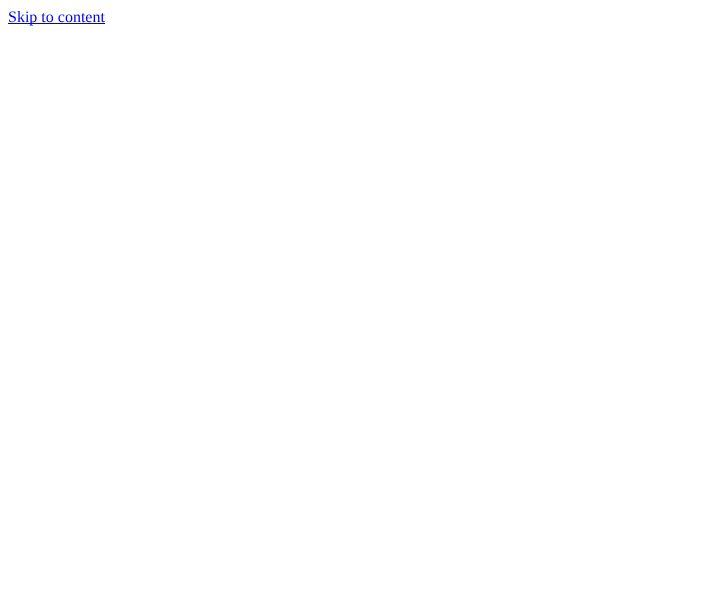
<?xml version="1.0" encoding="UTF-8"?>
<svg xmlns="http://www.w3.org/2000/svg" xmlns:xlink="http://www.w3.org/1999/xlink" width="721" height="615">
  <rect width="100%" height="100%" fill="#ffffff" />
  <rect x="8" y="23" width="97" height="1" fill="#0000ee" />
  <text x="8" y="22" style="font-family: Liberation Serif; font-size: 16px; fill: #0000ee">Skip to content</text>
</svg>
